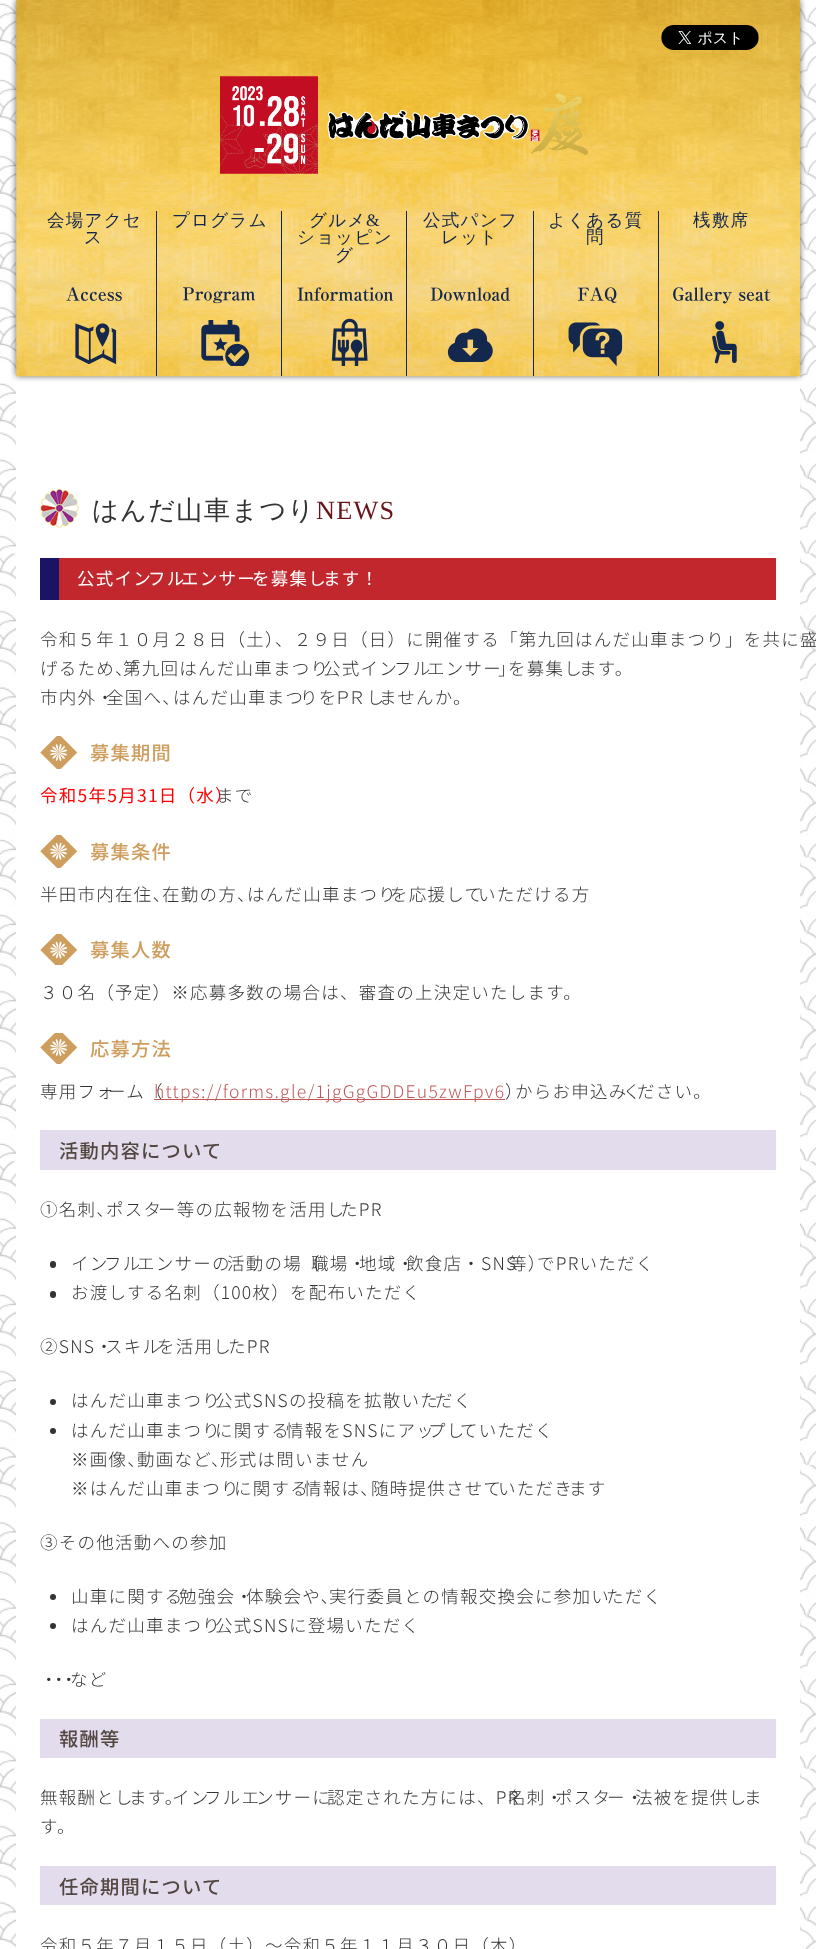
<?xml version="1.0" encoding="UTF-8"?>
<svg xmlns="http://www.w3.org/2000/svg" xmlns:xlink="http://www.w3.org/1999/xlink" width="816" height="1949">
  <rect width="100%" height="100%" fill="#ffffff" />
  <image x="0" y="0" width="816" height="1949" xlink:href="image1.png" />
  <rect x="16" y="376" width="784" height="1573" fill="#ffffff" />
  <rect x="16" width="784" height="376" fill="#000000" fill-opacity="0.6" filter="blur(3px)" />
  <image x="16" y="0" width="784" height="377" xlink:href="image2.png" />
  <image x="661" y="25" width="98" height="25" xlink:href="image3.png" />
  <image x="220" y="76" width="369" height="98" xlink:href="image4.png" />
  <image x="66" y="287" width="56" height="78" xlink:href="image5.png" />
  <rect x="156" y="211" width="1" height="165" fill="#13274b" />
  <image x="183" y="287" width="73" height="79" xlink:href="image6.png" />
  <rect x="281" y="211" width="1" height="165" fill="#13274b" />
  <image x="297" y="287" width="97" height="79" xlink:href="image7.png" />
  <rect x="406" y="211" width="1" height="165" fill="#13274b" />
  <image x="430" y="287" width="80" height="75" xlink:href="image8.png" />
  <rect x="533" y="211" width="1" height="165" fill="#13274b" />
  <image x="568" y="287" width="55" height="79" xlink:href="image9.png" />
  <rect x="658" y="211" width="1" height="165" fill="#13274b" />
  <image x="673" y="287" width="97" height="77" xlink:href="image10.png" />
  <image x="40" y="488" width="39" height="40" xlink:href="image11.png" />
  <rect x="59" y="558" width="717" height="42" fill="#c1272d" />
  <rect x="40" y="558" width="19" height="42" fill="#1b1464" />
  <image x="40" y="736" width="38" height="33" xlink:href="image12.png" />
  <image x="40" y="835" width="38" height="33" xlink:href="image13.png" />
  <image x="40" y="934" width="38" height="31" xlink:href="image14.png" />
  <image x="40" y="1033" width="38" height="31" xlink:href="image15.png" />
  <rect x="40" y="1130" width="736" height="40" fill="#e3dced" />
  <rect x="50" y="1261" width="6" height="7" rx="3" fill="#333333" />
  <rect x="50" y="1291" width="6" height="7" rx="3" fill="#333333" />
  <circle cx="53" cy="1402" r="3" fill="#333333" />
  <circle cx="53" cy="1431" r="3" fill="#333333" />
  <circle cx="53" cy="1597" r="3" fill="#333333" />
  <circle cx="53" cy="1626" r="3" fill="#333333" />
  <rect x="40" y="1719" width="736" height="39" fill="#e3dced" />
  <rect x="40" y="1866" width="736" height="39" fill="#e3dced" />
  <text x="47" y="226" style="font-family: WenQuanYi Zen Hei; font-size: 17.5px; font-weight: 500; letter-spacing: 1.25px; fill: #13274b">会場アクセ</text>
  <text x="84" y="243" style="font-family: WenQuanYi Zen Hei; font-size: 17.5px; font-weight: 500; letter-spacing: 1.25px; fill: #13274b">ス</text>
  <text x="172" y="226" style="font-family: WenQuanYi Zen Hei; font-size: 17.5px; font-weight: 500; letter-spacing: 1.25px; fill: #13274b">プログラム</text>
  <text x="309" y="226" style="font-family: WenQuanYi Zen Hei; font-size: 17.5px; font-weight: 500; letter-spacing: 1.25px; fill: #13274b">グルメ</text>
  <text x="366" y="226" style="font-family: Liberation Serif; font-size: 17.5px; letter-spacing: 1.25px; fill: #13274b">&amp;</text>
  <text x="297" y="243" style="font-family: WenQuanYi Zen Hei; font-size: 17.5px; font-weight: 500; letter-spacing: 1.25px; fill: #13274b">ショッピン</text>
  <text x="335" y="261" style="font-family: WenQuanYi Zen Hei; font-size: 17.5px; font-weight: 500; letter-spacing: 1.25px; fill: #13274b">グ</text>
  <text x="423" y="226" style="font-family: WenQuanYi Zen Hei; font-size: 17.5px; font-weight: 500; letter-spacing: 1.25px; fill: #13274b">公式パンフ</text>
  <text x="441" y="243" style="font-family: WenQuanYi Zen Hei; font-size: 17.5px; font-weight: 500; letter-spacing: 1.25px; fill: #13274b">レット</text>
  <text x="548" y="226" style="font-family: WenQuanYi Zen Hei; font-size: 17.5px; font-weight: 500; letter-spacing: 1.25px; fill: #13274b">よくある質</text>
  <text x="586" y="243" style="font-family: WenQuanYi Zen Hei; font-size: 17.5px; font-weight: 500; letter-spacing: 1.25px; fill: #13274b">問</text>
  <text x="693" y="226" style="font-family: WenQuanYi Zen Hei; font-size: 17.5px; font-weight: 500; letter-spacing: 1.25px; fill: #13274b">桟敷席</text>
  <text x="92" y="519" style="font-family: WenQuanYi Zen Hei; font-size: 26.25px; font-weight: 500; letter-spacing: 1.25px; fill: #333333">はんだ山車まつり</text>
  <text x="316" y="519" style="font-family: Liberation Serif; font-size: 26.25px; letter-spacing: 1.25px; fill: #681419">NEWS</text>
  <text x="77" y="585" style="font-family: Noto Sans JP; font-size: 17.5px; letter-spacing: 1.25px; fill: #ffffff">公式イン</text>
  <text x="148" y="585" style="font-family: Noto Sans JP; font-size: 17.5px; letter-spacing: 1.25px; fill: #ffffff">フル</text>
  <text x="181" y="585" style="font-family: Noto Sans JP; font-size: 17.5px; letter-spacing: 1.25px; fill: #ffffff">エンサー</text>
  <text x="252" y="585" style="font-family: Noto Sans JP; font-size: 17.5px; letter-spacing: 1.25px; fill: #ffffff">を募集し</text>
  <text x="323" y="585" style="font-family: Noto Sans JP; font-size: 17.5px; letter-spacing: 1.25px; fill: #ffffff">ます！</text>
  <text x="40" y="646" style="font-family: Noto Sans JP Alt; font-size: 17.5px; font-weight: 300; letter-spacing: 1.25px; fill: #333333">令和５年１０月２８日（土）、２９日（日）に開催する「第九回はんだ山車まつり」を共に盛り上</text>
  <text x="40" y="675" style="font-family: Noto Sans JP; font-size: 17.5px; font-weight: 300; letter-spacing: 1.25px; fill: #333333">げるため、</text>
  <text x="122" y="675" style="font-family: Noto Sans JP; font-size: 17.5px; font-weight: 300; letter-spacing: 1.25px; fill: #333333">「</text>
  <text x="123" y="675" style="font-family: Noto Sans JP; font-size: 17.5px; font-weight: 300; letter-spacing: 1.25px; fill: #333333">第九回はんだ山車まつり</text>
  <text x="323" y="675" style="font-family: Noto Sans JP; font-size: 17.5px; font-weight: 300; letter-spacing: 1.25px; fill: #333333">公式イン</text>
  <text x="394" y="675" style="font-family: Noto Sans JP; font-size: 17.5px; font-weight: 300; letter-spacing: 1.25px; fill: #333333">フル</text>
  <text x="427" y="675" style="font-family: Noto Sans JP; font-size: 17.5px; font-weight: 300; letter-spacing: 1.25px; fill: #333333">エンサー</text>
  <text x="498" y="675" style="font-family: Noto Sans JP; font-size: 17.5px; font-weight: 300; letter-spacing: 1.25px; fill: #333333">」</text>
  <text x="508" y="675" style="font-family: Noto Sans JP; font-size: 17.5px; font-weight: 300; letter-spacing: 1.25px; fill: #333333">を募集し</text>
  <text x="579" y="675" style="font-family: Noto Sans JP; font-size: 17.5px; font-weight: 300; letter-spacing: 1.25px; fill: #333333">ます。</text>
  <text x="40" y="704" style="font-family: Noto Sans JP; font-size: 17.5px; font-weight: 300; letter-spacing: 1.25px; fill: #333333">市内外・</text>
  <text x="106" y="704" style="font-family: Noto Sans JP; font-size: 17.5px; font-weight: 300; letter-spacing: 1.25px; fill: #333333">全国へ、</text>
  <text x="173" y="704" style="font-family: Noto Sans JP; font-size: 17.5px; font-weight: 300; letter-spacing: 1.25px; fill: #333333">はんだ山車まつ</text>
  <text x="300" y="704" style="font-family: Noto Sans JP; font-size: 17.5px; font-weight: 300; letter-spacing: 1.25px; fill: #333333">りを</text>
  <text x="334" y="704" style="font-family: Noto Sans JP; font-size: 17.5px; font-weight: 300; letter-spacing: 1.25px; fill: #333333">Ｐ</text>
  <text x="348" y="704" style="font-family: Noto Sans JP; font-size: 17.5px; font-weight: 300; letter-spacing: 1.25px; fill: #333333">Ｒし</text>
  <text x="379" y="704" style="font-family: Noto Sans JP; font-size: 17.5px; font-weight: 300; letter-spacing: 1.25px; fill: #333333">ませんか。</text>
  <text x="90" y="760" style="font-family: Noto Sans JP; font-size: 19.25px; font-weight: 500; letter-spacing: 1.25px; fill: #ce9e5e">募集期間</text>
  <text x="40" y="802" style="font-family: Noto Sans JP Alt; font-size: 17.5px; letter-spacing: 1.25px; fill: #ff0000">令和5年5月31日（水）</text>
  <text x="216" y="802" style="font-family: Noto Sans JP; font-size: 17.5px; font-weight: 300; letter-spacing: 1.25px; fill: #333333">まで</text>
  <text x="90" y="859" style="font-family: Noto Sans JP; font-size: 19.25px; font-weight: 500; letter-spacing: 1.25px; fill: #ce9e5e">募集条件</text>
  <text x="40" y="901" style="font-family: Noto Sans JP; font-size: 17.5px; font-weight: 300; letter-spacing: 1.25px; fill: #333333">半田市内在住、</text>
  <text x="162" y="901" style="font-family: Noto Sans JP; font-size: 17.5px; font-weight: 300; letter-spacing: 1.25px; fill: #333333">在勤の方、</text>
  <text x="247" y="901" style="font-family: Noto Sans JP; font-size: 17.5px; font-weight: 300; letter-spacing: 1.25px; fill: #333333">はんだ山車まつり</text>
  <text x="390" y="901" style="font-family: Noto Sans JP; font-size: 17.5px; font-weight: 300; letter-spacing: 1.25px; fill: #333333">を応援して</text>
  <text x="478" y="901" style="font-family: Noto Sans JP; font-size: 17.5px; font-weight: 300; letter-spacing: 1.25px; fill: #333333">いただける方</text>
  <text x="90" y="957" style="font-family: Noto Sans JP; font-size: 19.25px; font-weight: 500; letter-spacing: 1.25px; fill: #ce9e5e">募集人数</text>
  <text x="40" y="999" style="font-family: Noto Sans JP Alt; font-size: 17.5px; font-weight: 300; letter-spacing: 1.25px; fill: #333333">３０名（予定）※応募多数の場合は、審査の上決定いたします。</text>
  <text x="90" y="1056" style="font-family: Noto Sans JP; font-size: 19.25px; font-weight: 500; letter-spacing: 1.25px; fill: #ce9e5e">応募方法</text>
  <text x="40" y="1098" style="font-family: Noto Sans JP; font-size: 17.5px; font-weight: 300; letter-spacing: 1.25px; fill: #333333">専用フォ</text>
  <text x="108" y="1098" style="font-family: Noto Sans JP; font-size: 17.5px; font-weight: 300; letter-spacing: 1.25px; fill: #333333">ーム（</text>
  <rect x="154" y="1099" width="351" height="1" fill="#bf5959" />
  <text x="154" y="1098" style="font-family: Noto Sans JP; font-size: 17.5px; font-weight: 300; letter-spacing: 1.25px; fill: #bf5959">https://forms.gle/1jgGgGDDEu5zwFpv6</text>
  <text x="505" y="1098" style="font-family: Noto Sans JP; font-size: 17.5px; font-weight: 300; letter-spacing: 1.25px; fill: #333333">）</text>
  <text x="515" y="1098" style="font-family: Noto Sans JP; font-size: 17.5px; font-weight: 300; letter-spacing: 1.25px; fill: #333333">からお申込み</text>
  <text x="623" y="1098" style="font-family: Noto Sans JP; font-size: 17.5px; font-weight: 300; letter-spacing: 1.25px; fill: #333333">く</text>
  <text x="637" y="1098" style="font-family: Noto Sans JP; font-size: 17.5px; font-weight: 300; letter-spacing: 1.25px; fill: #333333">ださい。</text>
  <text x="59" y="1158" style="font-family: Noto Sans JP; font-size: 19.25px; font-weight: 500; letter-spacing: 1.25px; fill: #534741">活動内容について</text>
  <text x="40" y="1216" style="font-family: Noto Sans JP; font-size: 17.5px; font-weight: 300; letter-spacing: 1.25px; fill: #333333">①名刺、</text>
  <text x="106" y="1216" style="font-family: Noto Sans JP; font-size: 17.5px; font-weight: 300; letter-spacing: 1.25px; fill: #333333">ポスタ</text>
  <text x="158" y="1216" style="font-family: Noto Sans JP; font-size: 17.5px; font-weight: 300; letter-spacing: 1.25px; fill: #333333">ー等の広報物を活用し</text>
  <text x="340" y="1216" style="font-family: Noto Sans JP; font-size: 17.5px; font-weight: 300; letter-spacing: 1.25px; fill: #333333">たPR</text>
  <text x="71" y="1270" style="font-family: Noto Sans JP; font-size: 17.5px; font-weight: 300; letter-spacing: 1.25px; fill: #333333">イン</text>
  <text x="104" y="1270" style="font-family: Noto Sans JP; font-size: 17.5px; font-weight: 300; letter-spacing: 1.25px; fill: #333333">フル</text>
  <text x="137" y="1270" style="font-family: Noto Sans JP; font-size: 17.5px; font-weight: 300; letter-spacing: 1.25px; fill: #333333">エンサーの</text>
  <text x="227" y="1270" style="font-family: Noto Sans JP; font-size: 17.5px; font-weight: 300; letter-spacing: 1.25px; fill: #333333">活動の場（</text>
  <text x="311" y="1270" style="font-family: Noto Sans JP; font-size: 17.5px; font-weight: 300; letter-spacing: 1.25px; fill: #333333">職場・</text>
  <text x="359" y="1270" style="font-family: Noto Sans JP; font-size: 17.5px; font-weight: 300; letter-spacing: 1.25px; fill: #333333">地域・</text>
  <text x="406" y="1270" style="font-family: Noto Sans JP; font-size: 17.5px; font-weight: 300; letter-spacing: 1.25px; fill: #333333">飲食店・SNS</text>
  <text x="509" y="1270" style="font-family: Noto Sans JP; font-size: 17.5px; font-weight: 300; letter-spacing: 1.25px; fill: #333333">等）</text>
  <text x="537" y="1270" style="font-family: Noto Sans JP; font-size: 17.5px; font-weight: 300; letter-spacing: 1.25px; fill: #333333">でPRいただく</text>
  <text x="71" y="1299" style="font-family: Noto Sans JP Alt; font-size: 17.5px; font-weight: 300; letter-spacing: 1.25px; fill: #333333">お渡しする名刺（100枚）を配布いただく</text>
  <text x="40" y="1353" style="font-family: Noto Sans JP; font-size: 17.5px; font-weight: 300; letter-spacing: 1.25px; fill: #333333">②SNS・</text>
  <text x="105" y="1353" style="font-family: Noto Sans JP; font-size: 17.5px; font-weight: 300; letter-spacing: 1.25px; fill: #333333">スキル</text>
  <text x="157" y="1353" style="font-family: Noto Sans JP; font-size: 17.5px; font-weight: 300; letter-spacing: 1.25px; fill: #333333">を活用し</text>
  <text x="228" y="1353" style="font-family: Noto Sans JP; font-size: 17.5px; font-weight: 300; letter-spacing: 1.25px; fill: #333333">たPR</text>
  <text x="71" y="1407" style="font-family: Noto Sans JP; font-size: 17.5px; font-weight: 300; letter-spacing: 1.25px; fill: #333333">はんだ山車まつり</text>
  <text x="215" y="1407" style="font-family: Noto Sans JP; font-size: 17.5px; font-weight: 300; letter-spacing: 1.25px; fill: #333333">公式SNSの投稿を拡散いた</text>
  <text x="435" y="1407" style="font-family: Noto Sans JP; font-size: 17.5px; font-weight: 300; letter-spacing: 1.25px; fill: #333333">だく</text>
  <text x="71" y="1437" style="font-family: Noto Sans JP; font-size: 17.5px; font-weight: 300; letter-spacing: 1.25px; fill: #333333">はんだ山車まつり</text>
  <text x="215" y="1437" style="font-family: Noto Sans JP; font-size: 17.5px; font-weight: 300; letter-spacing: 1.25px; fill: #333333">に関する</text>
  <text x="286" y="1437" style="font-family: Noto Sans JP; font-size: 17.5px; font-weight: 300; letter-spacing: 1.25px; fill: #333333">情報をSNSにアッ</text>
  <text x="428" y="1437" style="font-family: Noto Sans JP; font-size: 17.5px; font-weight: 300; letter-spacing: 1.25px; fill: #333333">プし</text>
  <text x="460" y="1437" style="font-family: Noto Sans JP; font-size: 17.5px; font-weight: 300; letter-spacing: 1.25px; fill: #333333">ていただく</text>
  <text x="71" y="1466" style="font-family: Noto Sans JP; font-size: 17.5px; font-weight: 300; letter-spacing: 1.25px; fill: #333333">※画像、</text>
  <text x="137" y="1466" style="font-family: Noto Sans JP; font-size: 17.5px; font-weight: 300; letter-spacing: 1.25px; fill: #333333">動画など、</text>
  <text x="220" y="1466" style="font-family: Noto Sans JP; font-size: 17.5px; font-weight: 300; letter-spacing: 1.25px; fill: #333333">形式は問いません</text>
  <text x="71" y="1495" style="font-family: Noto Sans JP; font-size: 17.5px; font-weight: 300; letter-spacing: 1.25px; fill: #333333">※はんだ山車まつり</text>
  <text x="234" y="1495" style="font-family: Noto Sans JP; font-size: 17.5px; font-weight: 300; letter-spacing: 1.25px; fill: #333333">に関する</text>
  <text x="304" y="1495" style="font-family: Noto Sans JP; font-size: 17.5px; font-weight: 300; letter-spacing: 1.25px; fill: #333333">情報は、</text>
  <text x="371" y="1495" style="font-family: Noto Sans JP; font-size: 17.5px; font-weight: 300; letter-spacing: 1.25px; fill: #333333">随時提供させて</text>
  <text x="498" y="1495" style="font-family: Noto Sans JP; font-size: 17.5px; font-weight: 300; letter-spacing: 1.25px; fill: #333333">いただき</text>
  <text x="569" y="1495" style="font-family: Noto Sans JP; font-size: 17.5px; font-weight: 300; letter-spacing: 1.25px; fill: #333333">ます</text>
  <text x="40" y="1549" style="font-family: Noto Sans JP; font-size: 17.5px; font-weight: 300; letter-spacing: 1.25px; fill: #333333">③その他活動への参加</text>
  <text x="71" y="1603" style="font-family: Noto Sans JP; font-size: 17.5px; font-weight: 300; letter-spacing: 1.25px; fill: #333333">山車に関する</text>
  <text x="179" y="1603" style="font-family: Noto Sans JP; font-size: 17.5px; font-weight: 300; letter-spacing: 1.25px; fill: #333333">勉強会・</text>
  <text x="246" y="1603" style="font-family: Noto Sans JP; font-size: 17.5px; font-weight: 300; letter-spacing: 1.25px; fill: #333333">体験会や、</text>
  <text x="329" y="1603" style="font-family: Noto Sans JP; font-size: 17.5px; font-weight: 300; letter-spacing: 1.25px; fill: #333333">実行委員との情報交換会に参加い</text>
  <text x="606" y="1603" style="font-family: Noto Sans JP; font-size: 17.5px; font-weight: 300; letter-spacing: 1.25px; fill: #333333">ただく</text>
  <text x="71" y="1632" style="font-family: Noto Sans JP; font-size: 17.5px; font-weight: 300; letter-spacing: 1.25px; fill: #333333">はんだ山車まつり</text>
  <text x="215" y="1632" style="font-family: Noto Sans JP; font-size: 17.5px; font-weight: 300; letter-spacing: 1.25px; fill: #333333">公式SNSに登場いただく</text>
  <text x="40" y="1686" style="font-family: Noto Sans JP; font-size: 17.5px; font-weight: 300; letter-spacing: 1.25px; fill: #333333">・</text>
  <text x="50" y="1686" style="font-family: Noto Sans JP; font-size: 17.5px; font-weight: 300; letter-spacing: 1.25px; fill: #333333">・</text>
  <text x="60" y="1686" style="font-family: Noto Sans JP; font-size: 17.5px; font-weight: 300; letter-spacing: 1.25px; fill: #333333">・</text>
  <text x="70" y="1686" style="font-family: Noto Sans JP; font-size: 17.5px; font-weight: 300; letter-spacing: 1.25px; fill: #333333">など</text>
  <text x="59" y="1746" style="font-family: Noto Sans JP; font-size: 19.25px; font-weight: 500; letter-spacing: 1.25px; fill: #534741">報酬等</text>
  <text x="40" y="1804" style="font-family: Noto Sans JP; font-size: 17.5px; font-weight: 300; letter-spacing: 1.25px; fill: #333333">無報酬とし</text>
  <text x="129" y="1804" style="font-family: Noto Sans JP; font-size: 17.5px; font-weight: 300; letter-spacing: 1.25px; fill: #333333">ます。</text>
  <text x="172" y="1804" style="font-family: Noto Sans JP; font-size: 17.5px; font-weight: 300; letter-spacing: 1.25px; fill: #333333">イン</text>
  <text x="204" y="1804" style="font-family: Noto Sans JP; font-size: 17.5px; font-weight: 300; letter-spacing: 1.25px; fill: #333333">フルエ</text>
  <text x="256" y="1804" style="font-family: Noto Sans JP; font-size: 17.5px; font-weight: 300; letter-spacing: 1.25px; fill: #333333">ンサーに</text>
  <text x="327" y="1804" style="font-family: Noto Sans JP; font-size: 17.5px; font-weight: 300; letter-spacing: 1.25px; fill: #333333">認定された方には、PR</text>
  <text x="508" y="1804" style="font-family: Noto Sans JP; font-size: 17.5px; font-weight: 300; letter-spacing: 1.25px; fill: #333333">名刺・</text>
  <text x="555" y="1804" style="font-family: Noto Sans JP; font-size: 17.5px; font-weight: 300; letter-spacing: 1.25px; fill: #333333">ポスタ</text>
  <text x="607" y="1804" style="font-family: Noto Sans JP; font-size: 17.5px; font-weight: 300; letter-spacing: 1.25px; fill: #333333">ー・</text>
  <text x="635" y="1804" style="font-family: Noto Sans JP; font-size: 17.5px; font-weight: 300; letter-spacing: 1.25px; fill: #333333">法被を提供し</text>
  <text x="744" y="1804" style="font-family: Noto Sans JP; font-size: 17.5px; font-weight: 300; letter-spacing: 1.25px; fill: #333333">ま</text>
  <text x="40" y="1833" style="font-family: Noto Sans JP; font-size: 17.5px; font-weight: 300; letter-spacing: 1.25px; fill: #333333">す。</text>
  <text x="59" y="1894" style="font-family: Noto Sans JP; font-size: 19.25px; font-weight: 500; letter-spacing: 1.25px; fill: #534741">任命期間について</text>
  <text x="40" y="1952" style="font-family: Noto Sans JP Alt; font-size: 17.5px; font-weight: 300; letter-spacing: 1.25px; fill: #333333">令和５年７月１５日（土）～令和５年１１月３０日（木）</text>
</svg>
